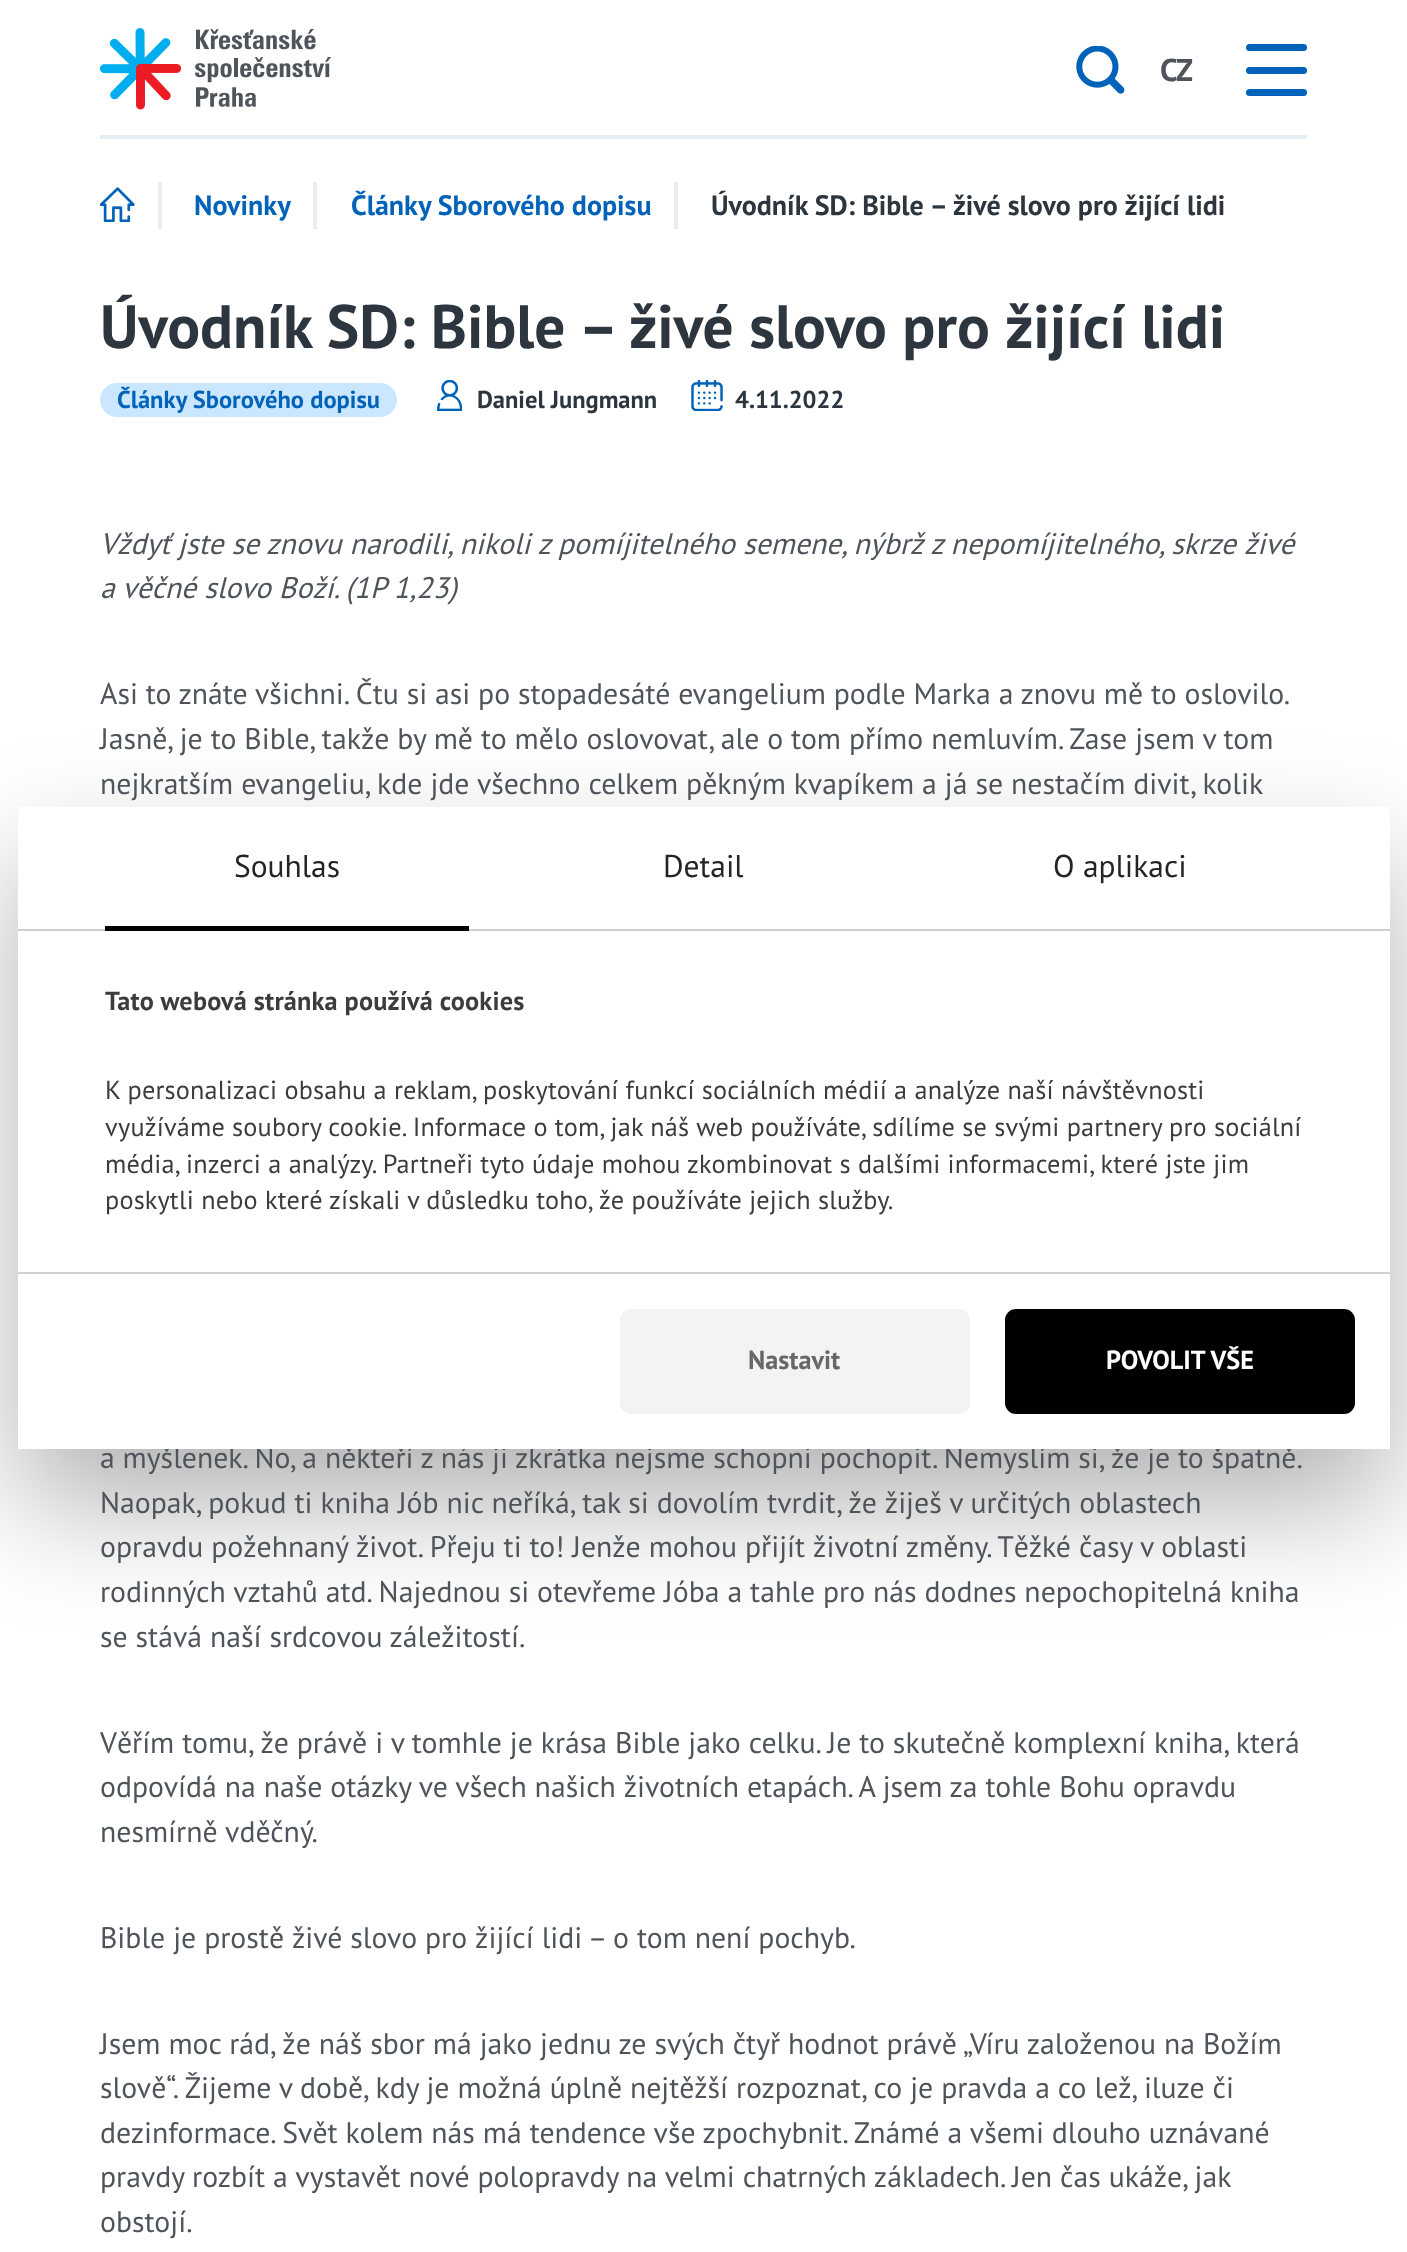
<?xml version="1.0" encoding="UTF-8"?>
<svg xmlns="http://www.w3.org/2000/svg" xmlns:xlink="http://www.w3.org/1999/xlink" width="1407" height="2252">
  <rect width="100%" height="100%" fill="#ffffff" />
  <image x="100" y="28" width="232" height="82" xlink:href="image1.png" />
  <image x="1076" y="46" width="49" height="48" xlink:href="image2.png" />
  <rect x="1246" y="44" width="61" height="7" rx="3.5" fill="#0063b9" />
  <rect x="1246" y="67" width="61" height="7" rx="3.5" fill="#0063b9" />
  <rect x="1246" y="89" width="61" height="7" rx="3.5" fill="#0063b9" />
  <rect x="100" y="135" width="1207" height="4" fill="#e6eef4" />
  <image x="100" y="187" width="35" height="35" xlink:href="image3.png" />
  <rect x="158" y="182" width="4" height="47" fill="#e6eef4" />
  <rect x="313" y="182" width="4" height="47" fill="#e6eef4" />
  <rect x="674" y="182" width="4" height="47" fill="#e6eef4" />
  <rect x="100" y="383" width="297" height="34" rx="17" fill="#cbe7ff" />
  <image x="437" y="380" width="25" height="31" xlink:href="image4.png" />
  <image x="691" y="380" width="32" height="31" xlink:href="image5.png" />
  <rect x="18" y="863" width="1372" height="642" fill="#000000" fill-opacity="0.3" filter="blur(59.5px)" />
  <text x="1160" y="81" style="font-family: PT Sans; font-size: 31.5px; font-weight: bold; fill: #4e545a">CZ</text>
  <text x="194" y="215" style="font-family: PT Sans; font-size: 28px; font-weight: bold; fill: #0063b9">Novinky</text>
  <text x="351" y="215" style="font-family: PT Sans; font-size: 28px; font-weight: bold; fill: #0063b9">Články Sborového dopisu</text>
  <text x="711" y="215" style="font-family: PT Sans; font-size: 28px; font-weight: bold; fill: #2d363f">Úvodník SD: Bible – živé slovo pro žijící lidi</text>
  <text x="100" y="348" style="font-family: PT Sans; font-size: 61.25px; font-weight: bold; fill: #2d363f">Úvodník SD: Bible – živé slovo pro žijící lidi</text>
  <text x="117" y="408" style="font-family: PT Sans; font-size: 24.5px; font-weight: bold; fill: #0063b9">Články Sborového dopisu</text>
  <text x="477" y="408" style="font-family: PT Sans; font-size: 24.5px; font-weight: bold; fill: #2d363f">Daniel Jungmann</text>
  <text x="735" y="408" style="font-family: PT Sans; font-size: 24.5px; font-weight: bold; fill: #2d363f">4.11.2022</text>
  <text x="100" y="554" style="font-family: PT Sans; font-size: 29.75px; font-style: italic; fill: #4e545a">Vždyť jste se znovu narodili, nikoli z pomíjitelného semene, nýbrž z nepomíjitelného, skrze živé</text>
  <text x="100" y="598" style="font-family: PT Sans; font-size: 29.75px; font-style: italic; fill: #4e545a">a věčné slovo Boží. (1P 1,23)</text>
  <text x="100" y="704" word-spacing="-0.1" style="font-family: PT Sans; font-size: 29.75px; fill: #4e545a">Asi to znáte všichni. Čtu si asi po stopadesáté evangelium podle Marka a znovu mě to oslovilo.</text>
  <text x="100" y="749" style="font-family: PT Sans; font-size: 29.75px; fill: #4e545a">Jasně, je to Bible, takže by mě to mělo oslovovat, ale o tom přímo nemluvím. Zase jsem v tom</text>
  <text x="100" y="794" style="font-family: PT Sans; font-size: 29.75px; fill: #4e545a">nejkratším evangeliu, kde jde všechno celkem pěkným kvapíkem a já se nestačím divit, kolik</text>
  <text x="100" y="1468" word-spacing="-0.1" style="font-family: PT Sans; font-size: 29.75px; fill: #4e545a">a myšlenek. No, a někteří z nás ji zkrátka nejsme schopni pochopit. Nemyslím si, že je to špatně.</text>
  <text x="100" y="1513" style="font-family: PT Sans; font-size: 29.75px; fill: #4e545a">Naopak, pokud ti kniha Jób nic neříká, tak si dovolím tvrdit, že žiješ v určitých oblastech</text>
  <text x="100" y="1557" style="font-family: PT Sans; font-size: 29.75px; fill: #4e545a">opravdu požehnaný život. Přeju ti to! Jenže mohou přijít životní změny. Těžké časy v oblasti</text>
  <text x="100" y="1602" style="font-family: PT Sans; font-size: 29.75px; fill: #4e545a">rodinných vztahů atd. Najednou si otevřeme Jóba a tahle pro nás dodnes nepochopitelná kniha</text>
  <text x="100" y="1647" style="font-family: PT Sans; font-size: 29.75px; fill: #4e545a">se stává naší srdcovou záležitostí.</text>
  <text x="100" y="1753" style="font-family: PT Sans; font-size: 29.75px; fill: #4e545a">Věřím tomu, že právě i v tomhle je krása Bible jako celku. Je to skutečně komplexní kniha, která</text>
  <text x="100" y="1797" style="font-family: PT Sans; font-size: 29.75px; fill: #4e545a">odpovídá na naše otázky ve všech našich životních etapách. A jsem za tohle Bohu opravdu</text>
  <text x="100" y="1842" style="font-family: PT Sans; font-size: 29.75px; fill: #4e545a">nesmírně vděčný.</text>
  <text x="100" y="1948" style="font-family: PT Sans; font-size: 29.75px; fill: #4e545a">Bible je prostě živé slovo pro žijící lidi – o tom není pochyb.</text>
  <text x="100" y="2054" style="font-family: PT Sans; font-size: 29.75px; fill: #4e545a">Jsem moc rád, že náš sbor má jako jednu ze svých čtyř hodnot právě „Víru založenou na Božím</text>
  <text x="100" y="2098" style="font-family: PT Sans; font-size: 29.75px; fill: #4e545a">slově“. Žijeme v době, kdy je možná úplně nejtěžší rozpoznat, co je pravda a co lež, iluze či</text>
  <text x="100" y="2143" style="font-family: PT Sans; font-size: 29.75px; fill: #4e545a">dezinformace. Svět kolem nás má tendence vše zpochybnit. Známé a všemi dlouho uznávané</text>
  <text x="100" y="2187" style="font-family: PT Sans; font-size: 29.75px; fill: #4e545a">pravdy rozbít a vystavět nové polopravdy na velmi chatrných základech. Jen čas ukáže, jak</text>
  <text x="100" y="2232" style="font-family: PT Sans; font-size: 29.75px; fill: #4e545a">obstojí.</text>
  <rect x="18" y="807" width="1372" height="642" fill="#ffffff" />
  <rect x="18" y="929" width="1372" height="2" fill="#d0d0d0" />
  <text x="234" y="877" style="font-family: PT Sans; font-size: 31.5px; fill: #242424">Souhlas</text>
  <rect x="105" y="926" width="364" height="5" fill="#000000" />
  <text x="663" y="877" style="font-family: PT Sans; font-size: 31.5px; fill: #242424">Detail</text>
  <text x="1053" y="877" style="font-family: PT Sans; font-size: 31.5px; fill: #242424">O aplikaci</text>
  <text x="105" y="1010" style="font-family: PT Sans; font-size: 26.25px; font-weight: bold; letter-spacing: 0.18px; fill: #3c3c3c">Tato webová stránka používá cookies</text>
  <text x="105" y="1099" style="font-family: PT Sans; font-size: 26.25px; letter-spacing: 0.18px; fill: #3c3c3c">K personalizaci obsahu a reklam, poskytování funkcí sociálních médií a analýze naší návštěvnosti</text>
  <text x="105" y="1136" style="font-family: PT Sans; font-size: 26.25px; letter-spacing: 0.18px; fill: #3c3c3c">využíváme soubory cookie. Informace o tom, jak náš web používáte, sdílíme se svými partnery pro sociální</text>
  <text x="105" y="1173" style="font-family: PT Sans; font-size: 26.25px; letter-spacing: 0.18px; fill: #3c3c3c">média, inzerci a analýzy. Partneři tyto údaje mohou zkombinovat s dalšími informacemi, které jste jim</text>
  <text x="105" y="1209" style="font-family: PT Sans; font-size: 26.25px; letter-spacing: 0.18px; fill: #3c3c3c">poskytli nebo které získali v důsledku toho, že používáte jejich služby.</text>
  <rect x="18" y="1272" width="1372" height="2" fill="#d0d0d0" />
  <rect x="620" y="1309" width="350" height="105" rx="11" fill="#f3f3f2" />
  <text x="748" y="1369" style="font-family: PT Sans; font-size: 26.25px; font-weight: bold; fill: #676767">Nastavit</text>
  <rect x="1005" y="1309" width="350" height="105" rx="11" fill="#000000" />
  <text x="1106" y="1369" style="font-family: PT Sans; font-size: 26.25px; font-weight: bold; fill: #ffffff">POVOLIT VŠE</text>
</svg>
